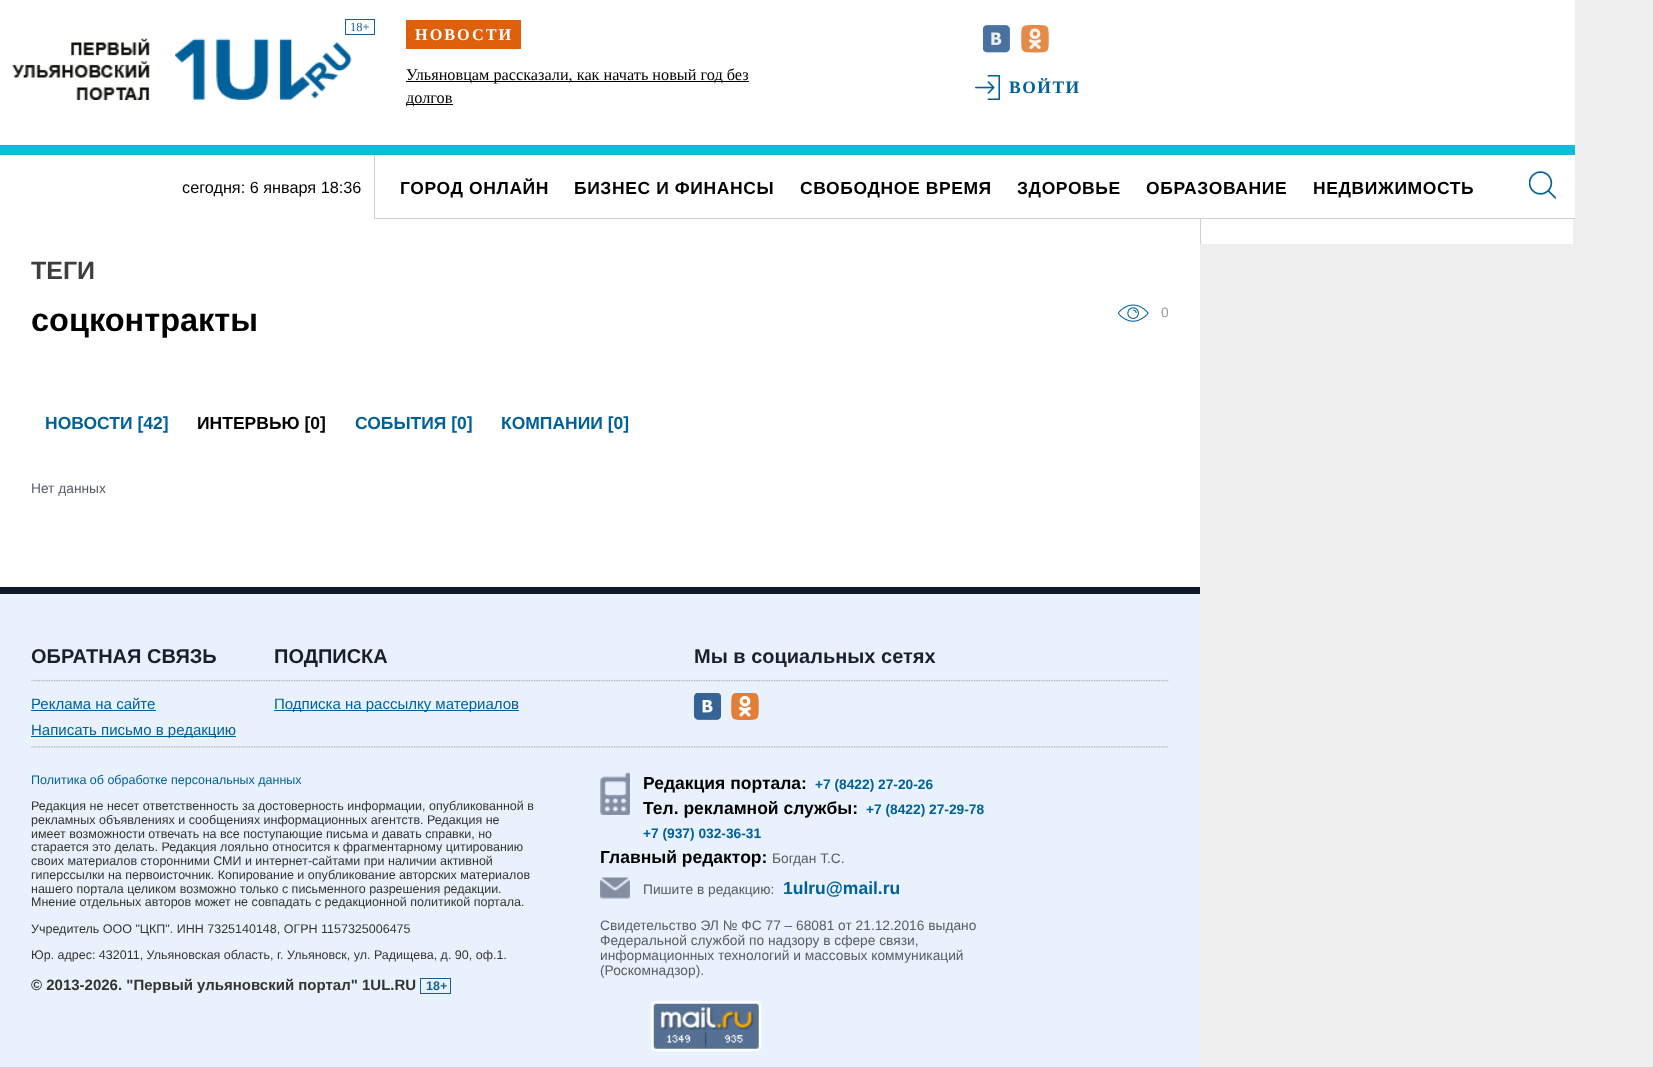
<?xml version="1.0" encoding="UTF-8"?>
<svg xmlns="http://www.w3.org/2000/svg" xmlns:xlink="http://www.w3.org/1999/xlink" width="1653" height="1067">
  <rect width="100%" height="100%" fill="#efefef" />
  <rect width="1575" height="145" fill="#ffffff" />
  <rect y="145" width="1575" height="10" fill="#0fbbda" />
  <rect x="345.5" y="19.5" width="29" height="15" fill="none" stroke="#146096" />
  <image x="12" y="38" width="138" height="62" xlink:href="image1.png" />
  <image x="175" y="38" width="177" height="62" xlink:href="image2.png" />
  <rect x="406" y="20" width="115" height="29" fill="#de600c" />
  <rect x="406" y="81" width="343" height="1" fill="#000000" />
  <rect x="406" y="104" width="47" height="1" fill="#000000" />
  <image x="983" y="25" width="27" height="28" xlink:href="image3.png" />
  <image x="1021" y="25" width="28" height="28" xlink:href="image4.png" />
  <image x="975" y="75" width="25" height="25" xlink:href="image5.png" />
  <rect y="155" width="1575" height="64" fill="#ffffff" />
  <rect x="374" y="155" width="1" height="64" fill="#d1d0d0" />
  <rect x="375" y="218" width="1200" height="1" fill="#d1d0d0" />
  <image x="1529" y="171" width="27" height="28" xlink:href="image6.png" />
  <rect x="1201" y="219" width="372" height="25" fill="#ffffff" />
  <rect x="1200" y="219" width="1" height="25" fill="#d1d0d0" />
  <rect y="219" width="1200" height="368" fill="#ffffff" />
  <image x="1118" y="304" width="31" height="18" xlink:href="image7.png" />
  <rect y="594" width="1200" height="473" fill="#e9f2fc" />
  <rect y="587" width="1200" height="7" fill="#0f192b" />
  <image x="31" y="679" width="1138" height="69" xlink:href="image8.png" />
  <rect x="31" y="710" width="125" height="1" fill="#006099" />
  <rect x="31" y="736" width="205" height="1" fill="#006099" />
  <rect x="274" y="710" width="245" height="1" fill="#006099" />
  <image x="694" y="693" width="27" height="27" xlink:href="image9.png" />
  <image x="731" y="693" width="28" height="27" xlink:href="image10.png" />
  <rect x="420.5" y="978.5" width="30" height="15" fill="none" stroke="#146096" />
  <image x="600" y="772" width="30" height="43" xlink:href="image11.png" />
  <image x="600" y="877" width="30" height="22" xlink:href="image12.png" />
  <image x="651" y="1001" width="111" height="51" xlink:href="image13.png" />
  <text x="350" y="31" style="font-family: Liberation Serif; font-size: 12.5px; fill: #146096">18+</text>
  <text x="415" y="40" style="font-family: Liberation Serif; font-size: 16.25px; font-weight: bold; letter-spacing: 2px; fill: #ffffff">НОВОСТИ</text>
  <text x="406" y="80" style="font-family: Liberation Serif; font-size: 16.25px; fill: #000000">Ульяновцам рассказали, как начать новый год без</text>
  <text x="406" y="103" style="font-family: Liberation Serif; font-size: 16.25px; fill: #000000">долгов</text>
  <text x="1009" y="93" style="font-family: Liberation Serif; font-size: 17.5px; font-weight: bold; letter-spacing: 1.5px; fill: #006099">ВОЙТИ</text>
  <text x="182" y="193" style="font-family: Liberation Sans; font-size: 16.25px; fill: #000000">сегодня: 6 января 18:36</text>
  <text x="400" y="194" style="font-family: Liberation Sans; font-size: 17.5px; font-weight: bold; letter-spacing: 0.6px; fill: #000000">ГОРОД ОНЛАЙН</text>
  <text x="574" y="194" style="font-family: Liberation Sans; font-size: 17.5px; font-weight: bold; letter-spacing: 0.6px; fill: #000000">БИЗНЕС И ФИНАНСЫ</text>
  <text x="800" y="194" style="font-family: Liberation Sans; font-size: 17.5px; font-weight: bold; letter-spacing: 0.6px; fill: #000000">СВОБОДНОЕ ВРЕМЯ</text>
  <text x="1017" y="194" style="font-family: Liberation Sans; font-size: 17.5px; font-weight: bold; letter-spacing: 0.6px; fill: #000000">ЗДОРОВЬЕ</text>
  <text x="1146" y="194" style="font-family: Liberation Sans; font-size: 17.5px; font-weight: bold; letter-spacing: 0.6px; fill: #000000">ОБРАЗОВАНИЕ</text>
  <text x="1313" y="194" style="font-family: Liberation Sans; font-size: 17.5px; font-weight: bold; letter-spacing: 0.6px; fill: #000000">НЕДВИЖИМОСТЬ</text>
  <text x="31" y="279" style="font-family: Liberation Sans; font-size: 25px; font-weight: bold; fill: #3e3e3e">ТЕГИ</text>
  <text x="31" y="331" style="font-family: Liberation Sans; font-size: 32.5px; font-weight: bold; fill: #000000">соцконтракты</text>
  <text x="1161" y="317" style="font-family: Liberation Sans; font-size: 13.75px; fill: #999999">0</text>
  <text x="45" y="429" style="font-family: Liberation Sans; font-size: 17.5px; font-weight: bold; fill: #006099">НОВОСТИ [42]</text>
  <text x="197" y="429" style="font-family: Liberation Sans; font-size: 17.5px; font-weight: bold; fill: #000000">ИНТЕРВЬЮ [0]</text>
  <text x="355" y="429" style="font-family: Liberation Sans; font-size: 17.5px; font-weight: bold; fill: #006099">СОБЫТИЯ [0]</text>
  <text x="501" y="429" style="font-family: Liberation Sans; font-size: 17.5px; font-weight: bold; fill: #006099">КОМПАНИИ [0]</text>
  <text x="31" y="493" style="font-family: Liberation Sans; font-size: 13.75px; fill: #565d66">Нет данных</text>
  <text x="31" y="663" style="font-family: Liberation Sans; font-size: 20px; font-weight: bold; fill: #191f2e">ОБРАТНАЯ СВЯЗЬ</text>
  <text x="31" y="709" style="font-family: Liberation Sans; font-size: 15px; fill: #006099">Реклама на сайте</text>
  <text x="31" y="735" style="font-family: Liberation Sans; font-size: 15px; fill: #006099">Написать письмо в редакцию</text>
  <text x="274" y="663" style="font-family: Liberation Sans; font-size: 20px; font-weight: bold; fill: #191f2e">ПОДПИСКА</text>
  <text x="274" y="709" style="font-family: Liberation Sans; font-size: 15px; fill: #006099">Подписка на рассылку материалов</text>
  <text x="694" y="663" style="font-family: Liberation Sans; font-size: 20px; font-weight: bold; fill: #191f2e">Мы в социальных сетях</text>
  <text x="31" y="784" style="font-family: Liberation Sans; font-size: 12.5px; fill: #006099">Политика об обработке персональных данных</text>
  <text x="31" y="810" style="font-family: Liberation Sans; font-size: 12.5px; fill: #333333">Редакция не несет ответственность за достоверность информации, опубликованной в</text>
  <text x="31" y="824" style="font-family: Liberation Sans; font-size: 12.5px; fill: #333333">рекламных объявлениях и сообщениях информационных агентств. Редакция не</text>
  <text x="31" y="838" style="font-family: Liberation Sans; font-size: 12.5px; fill: #333333">имеет возможности отвечать на все поступающие письма и давать справки, но</text>
  <text x="31" y="851" style="font-family: Liberation Sans; font-size: 12.5px; fill: #333333">старается это делать. Редакция лояльно относится к фрагментарному цитированию</text>
  <text x="31" y="865" style="font-family: Liberation Sans; font-size: 12.5px; fill: #333333">своих материалов сторонними СМИ и интернет-сайтами при наличии активной</text>
  <text x="31" y="879" style="font-family: Liberation Sans; font-size: 12.5px; fill: #333333">гиперссылки на первоисточник. Копирование и опубликование авторских материалов</text>
  <text x="31" y="893" style="font-family: Liberation Sans; font-size: 12.5px; fill: #333333">нашего портала целиком возможно только с письменного разрешения редакции.</text>
  <text x="31" y="906" style="font-family: Liberation Sans; font-size: 12.5px; fill: #333333">Мнение отдельных авторов может не совпадать с редакционной политикой портала.</text>
  <text x="31" y="933" style="font-family: Liberation Sans; font-size: 12.5px; fill: #333333">Учредитель ООО "ЦКП". ИНН 7325140148, ОГРН 1157325006475</text>
  <text x="31" y="959" style="font-family: Liberation Sans; font-size: 12.5px; fill: #333333">Юр. адрес: 432011, Ульяновская область, г. Ульяновск, ул. Радищева, д. 90, оф.1.</text>
  <text x="31" y="990" style="font-family: Liberation Sans; font-size: 15px; font-weight: bold; fill: #333333">© 2013-2026. "Первый ульяновский портал" 1UL.RU</text>
  <text x="426" y="990" style="font-family: Liberation Sans; font-size: 12.5px; font-weight: bold; fill: #146096">18+</text>
  <text x="643" y="789" style="font-family: Liberation Sans; font-size: 17.5px; font-weight: bold; fill: #000000">Редакция портала:</text>
  <text x="815" y="789" style="font-family: Liberation Sans; font-size: 13.75px; font-weight: bold; fill: #006099">+7 (8422) 27-20-26</text>
  <text x="643" y="814" style="font-family: Liberation Sans; font-size: 17.5px; font-weight: bold; fill: #000000">Тел. рекламной службы:</text>
  <text x="866" y="814" style="font-family: Liberation Sans; font-size: 13.75px; font-weight: bold; fill: #006099">+7 (8422) 27-29-78</text>
  <text x="643" y="838" style="font-family: Liberation Sans; font-size: 13.75px; font-weight: bold; fill: #006099">+7 (937) 032-36-31</text>
  <text x="600" y="863" style="font-family: Liberation Sans; font-size: 17.5px; font-weight: bold; fill: #000000">Главный редактор:</text>
  <text x="772" y="863" style="font-family: Liberation Sans; font-size: 13.75px; fill: #565d66">Богдан Т.С.</text>
  <text x="643" y="894" style="font-family: Liberation Sans; font-size: 13.75px; fill: #565d66">Пишите в редакцию:</text>
  <text x="783" y="894" style="font-family: Liberation Sans; font-size: 17.5px; font-weight: bold; fill: #006099">1ulru@mail.ru</text>
  <text x="600" y="930" style="font-family: Liberation Sans; font-size: 13.75px; fill: #565d66">Свидетельство ЭЛ № ФС 77 – 68081 от 21.12.2016 выдано</text>
  <text x="600" y="945" style="font-family: Liberation Sans; font-size: 13.75px; fill: #565d66">Федеральной службой по надзору в сфере связи,</text>
  <text x="600" y="960" style="font-family: Liberation Sans; font-size: 13.75px; fill: #565d66">информационных технологий и массовых коммуникаций</text>
  <text x="600" y="975" style="font-family: Liberation Sans; font-size: 13.75px; fill: #565d66">(Роскомнадзор).</text>
</svg>
